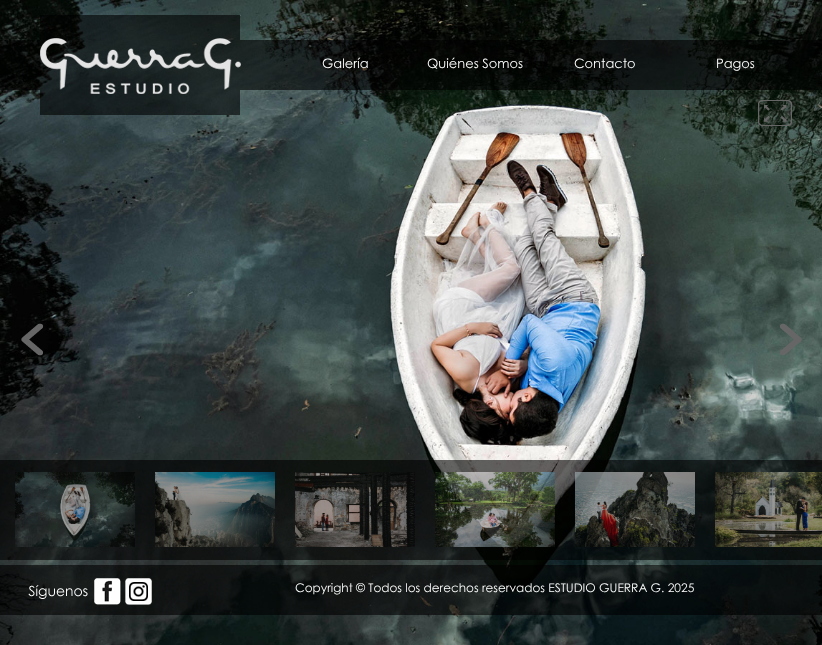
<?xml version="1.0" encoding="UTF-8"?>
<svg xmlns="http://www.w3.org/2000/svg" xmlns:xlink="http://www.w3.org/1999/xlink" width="822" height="645">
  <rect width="100%" height="100%" fill="#ffffff" />
  <image x="0" y="0" width="822" height="645" xlink:href="image1.png" />
  <rect y="40" width="822" height="50" fill="#000000" fill-opacity="0.6" />
  <rect x="40" y="15" width="200" height="25" fill="#000000" fill-opacity="0.6" />
  <rect x="40" y="90" width="200" height="25" fill="#000000" fill-opacity="0.6" />
  <image x="40" y="38" width="201" height="56" xlink:href="image2.png" />
  <image x="758" y="100" width="34" height="26" xlink:href="image3.png" />
  <image x="21" y="323" width="22" height="33" xlink:href="image4.png" />
  <image x="779" y="323" width="23" height="33" xlink:href="image5.png" />
  <rect y="460" width="822" height="100" fill="#000000" fill-opacity="0.6" />
  <image x="15" y="472" width="120" height="75" xlink:href="image6.png" />
  <image x="155" y="472" width="120" height="75" xlink:href="image7.png" />
  <image x="295" y="472" width="120" height="75" xlink:href="image8.png" />
  <image x="435" y="472" width="120" height="75" xlink:href="image9.png" />
  <image x="575" y="472" width="120" height="75" xlink:href="image10.png" />
  <image x="715" y="472" width="107" height="75" xlink:href="image11.png" />
  <rect y="565" width="822" height="50" fill="#000000" fill-opacity="0.6" />
  <image x="28" y="585" width="60" height="14" xlink:href="image12.png" />
  <image x="94" y="578" width="27" height="27" xlink:href="image13.png" />
  <image x="125" y="578" width="27" height="27" xlink:href="image14.png" />
  <text x="322" y="68" style="font-family: Century Gothic; font-size: 13px; fill: #ffffff">Galería</text>
  <text x="427" y="68" style="font-family: Century Gothic; font-size: 13px; fill: #ffffff">Quiénes Somos</text>
  <text x="574" y="68" style="font-family: Century Gothic; font-size: 13px; fill: #ffffff">Contacto</text>
  <text x="716" y="68" style="font-family: Century Gothic; font-size: 13px; fill: #ffffff">Pagos</text>
  <text x="295" y="592" style="font-family: Century Gothic; font-size: 12px; fill: #ffffff">Copyright © Todos los derechos reservados ESTUDIO GUERRA G. 2025</text>
</svg>
